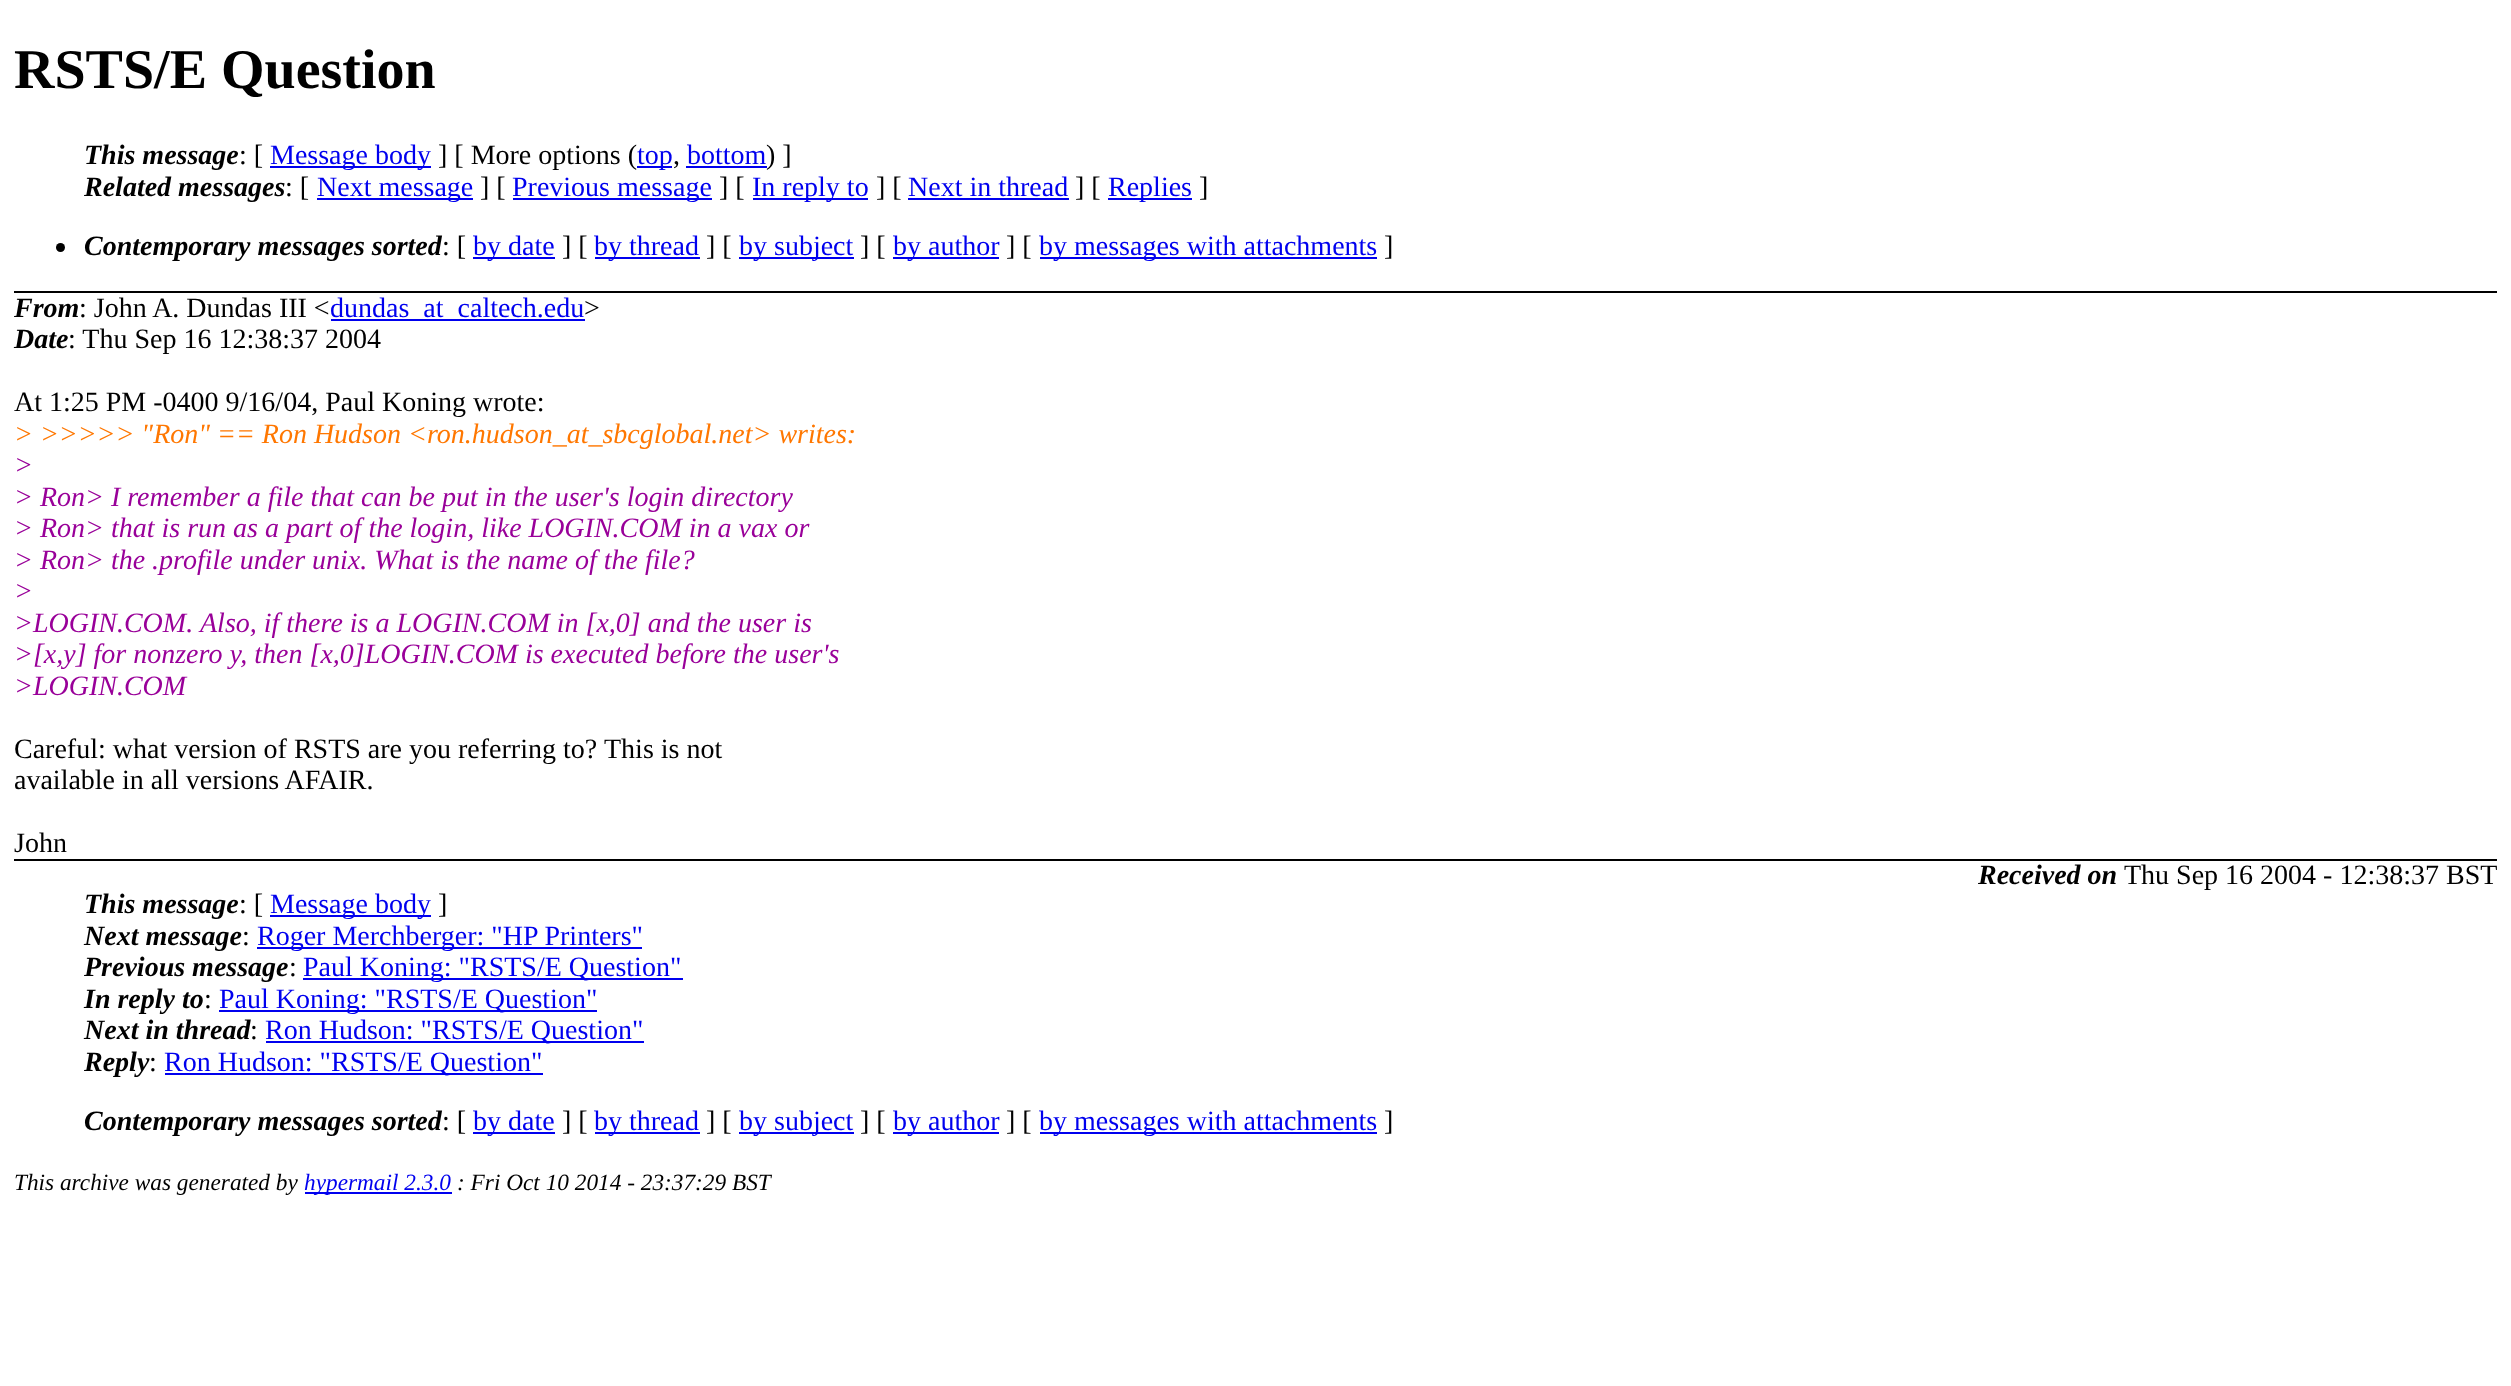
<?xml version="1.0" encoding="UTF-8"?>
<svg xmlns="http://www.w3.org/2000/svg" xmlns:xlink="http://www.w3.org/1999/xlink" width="2511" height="1386">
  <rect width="100%" height="100%" fill="#ffffff" />
  <rect x="14" y="291" width="2483" height="2" fill="#000000" />
  <rect x="270" y="166" width="161" height="2" fill="#0000ee" />
  <rect x="637" y="166" width="35" height="2" fill="#0000ee" />
  <rect x="686" y="166" width="81" height="2" fill="#0000ee" />
  <rect x="317" y="198" width="156" height="2" fill="#0000ee" />
  <rect x="513" y="198" width="199" height="2" fill="#0000ee" />
  <rect x="753" y="198" width="115" height="2" fill="#0000ee" />
  <rect x="908" y="198" width="161" height="2" fill="#0000ee" />
  <rect x="1108" y="198" width="84" height="2" fill="#0000ee" />
  <circle cx="60.5" cy="247.5" r="4.5" fill="#000000" />
  <rect x="473" y="257" width="82" height="2" fill="#0000ee" />
  <rect x="595" y="257" width="105" height="2" fill="#0000ee" />
  <rect x="739" y="257" width="115" height="2" fill="#0000ee" />
  <rect x="893" y="257" width="106" height="2" fill="#0000ee" />
  <rect x="1040" y="257" width="337" height="2" fill="#0000ee" />
  <rect x="331" y="319" width="254" height="2" fill="#0000ee" />
  <rect x="14" y="859" width="2483" height="2" fill="#000000" />
  <rect x="270" y="915" width="161" height="2" fill="#0000ee" />
  <rect x="257" y="947" width="385" height="2" fill="#0000ee" />
  <rect x="303" y="978" width="380" height="2" fill="#0000ee" />
  <rect x="219" y="1010" width="378" height="2" fill="#0000ee" />
  <rect x="266" y="1041" width="378" height="2" fill="#0000ee" />
  <rect x="165" y="1073" width="378" height="2" fill="#0000ee" />
  <rect x="473" y="1132" width="82" height="2" fill="#0000ee" />
  <rect x="595" y="1132" width="105" height="2" fill="#0000ee" />
  <rect x="739" y="1132" width="115" height="2" fill="#0000ee" />
  <rect x="893" y="1132" width="106" height="2" fill="#0000ee" />
  <rect x="1040" y="1132" width="337" height="2" fill="#0000ee" />
  <rect x="305" y="1192" width="147" height="2" fill="#0000ee" />
  <text x="14" y="88" style="font-family: Liberation Serif; font-size: 56px; font-weight: bold; fill: #000000">RSTS/E Question</text>
  <text x="84" y="164" style="font-family: Liberation Serif; font-size: 28px; font-weight: bold; font-style: italic; fill: #000000">This message</text>
  <text x="239" y="164" style="font-family: Liberation Serif; font-size: 28px; fill: #000000">: [</text>
  <text x="270" y="164" style="font-family: Liberation Serif; font-size: 28px; fill: #0000ee">Message body</text>
  <text x="438" y="164" style="font-family: Liberation Serif; font-size: 28px; fill: #000000">] [ More options (</text>
  <text x="637" y="164" style="font-family: Liberation Serif; font-size: 28px; fill: #0000ee">top</text>
  <text x="673" y="164" style="font-family: Liberation Serif; font-size: 28px; fill: #000000">,</text>
  <text x="687" y="164" style="font-family: Liberation Serif; font-size: 28px; fill: #0000ee">bottom</text>
  <text x="766" y="164" style="font-family: Liberation Serif; font-size: 28px; fill: #000000">) ]</text>
  <text x="84" y="196" style="font-family: Liberation Serif; font-size: 28px; font-weight: bold; font-style: italic; fill: #000000">Related messages</text>
  <text x="285" y="196" style="font-family: Liberation Serif; font-size: 28px; fill: #000000">: [</text>
  <text x="317" y="196" style="font-family: Liberation Serif; font-size: 28px; fill: #0000ee">Next message</text>
  <text x="480" y="196" style="font-family: Liberation Serif; font-size: 28px; fill: #000000">] [</text>
  <text x="512" y="196" style="font-family: Liberation Serif; font-size: 28px; fill: #0000ee">Previous message</text>
  <text x="719" y="196" style="font-family: Liberation Serif; font-size: 28px; fill: #000000">] [</text>
  <text x="752" y="196" style="font-family: Liberation Serif; font-size: 28px; fill: #0000ee">In reply to</text>
  <text x="876" y="196" style="font-family: Liberation Serif; font-size: 28px; fill: #000000">] [</text>
  <text x="908" y="196" style="font-family: Liberation Serif; font-size: 28px; fill: #0000ee">Next in thread</text>
  <text x="1075" y="196" style="font-family: Liberation Serif; font-size: 28px; fill: #000000">] [</text>
  <text x="1108" y="196" style="font-family: Liberation Serif; font-size: 28px; fill: #0000ee">Replies</text>
  <text x="1199" y="196" style="font-family: Liberation Serif; font-size: 28px; fill: #000000">]</text>
  <text x="84" y="255" style="font-family: Liberation Serif; font-size: 28px; font-weight: bold; font-style: italic; fill: #000000">Contemporary messages sorted</text>
  <text x="442" y="255" style="font-family: Liberation Serif; font-size: 28px; fill: #000000">: [</text>
  <text x="473" y="255" style="font-family: Liberation Serif; font-size: 28px; fill: #0000ee">by date</text>
  <text x="562" y="255" style="font-family: Liberation Serif; font-size: 28px; fill: #000000">] [</text>
  <text x="594" y="255" style="font-family: Liberation Serif; font-size: 28px; fill: #0000ee">by thread</text>
  <text x="706" y="255" style="font-family: Liberation Serif; font-size: 28px; fill: #000000">] [</text>
  <text x="739" y="255" style="font-family: Liberation Serif; font-size: 28px; fill: #0000ee">by subject</text>
  <text x="860" y="255" style="font-family: Liberation Serif; font-size: 28px; fill: #000000">] [</text>
  <text x="893" y="255" style="font-family: Liberation Serif; font-size: 28px; fill: #0000ee">by author</text>
  <text x="1006" y="255" style="font-family: Liberation Serif; font-size: 28px; fill: #000000">] [</text>
  <text x="1039" y="255" style="font-family: Liberation Serif; font-size: 28px; fill: #0000ee">by messages with attachments</text>
  <text x="1384" y="255" style="font-family: Liberation Serif; font-size: 28px; fill: #000000">]</text>
  <text x="14" y="317" style="font-family: Liberation Serif; font-size: 28px; font-weight: bold; font-style: italic; fill: #000000">From</text>
  <text x="79" y="317" style="font-family: Liberation Serif; font-size: 28px; fill: #000000">: John A. Dundas III &lt;</text>
  <text x="330" y="317" style="font-family: Liberation Serif; font-size: 28px; fill: #0000ee">dundas_at_caltech.edu</text>
  <text x="584" y="317" style="font-family: Liberation Serif; font-size: 28px; fill: #000000">&gt;</text>
  <text x="14" y="348" style="font-family: Liberation Serif; font-size: 28px; font-weight: bold; font-style: italic; fill: #000000">Date</text>
  <text x="68" y="348" style="font-family: Liberation Serif; font-size: 28px; fill: #000000">: Thu Sep 16 12:38:37 2004</text>
  <text x="14" y="411" style="font-family: Liberation Serif; font-size: 28px; fill: #000000">At 1:25 PM -0400 9/16/04, Paul Koning wrote:</text>
  <text x="14" y="443" style="font-family: Liberation Serif; font-size: 28px; font-style: italic; fill: #ff7700">&gt; &gt;&gt;&gt;&gt;&gt; "Ron" == Ron Hudson &lt;ron.hudson_at_sbcglobal.net&gt; writes:</text>
  <text x="14" y="474" style="font-family: Liberation Serif; font-size: 28px; font-style: italic; fill: #990099">&gt;</text>
  <text x="14" y="506" style="font-family: Liberation Serif; font-size: 28px; font-style: italic; fill: #990099">&gt; Ron&gt; I remember a file that can be put in the user's login directory</text>
  <text x="14" y="537" style="font-family: Liberation Serif; font-size: 28px; font-style: italic; fill: #990099">&gt; Ron&gt; that is run as a part of the login, like LOGIN.COM in a vax or</text>
  <text x="14" y="569" style="font-family: Liberation Serif; font-size: 28px; font-style: italic; fill: #990099">&gt; Ron&gt; the .profile under unix. What is the name of the file?</text>
  <text x="14" y="600" style="font-family: Liberation Serif; font-size: 28px; font-style: italic; fill: #990099">&gt;</text>
  <text x="14" y="632" style="font-family: Liberation Serif; font-size: 28px; font-style: italic; fill: #990099">&gt;LOGIN.COM.</text>
  <text x="200" y="632" style="font-family: Liberation Serif; font-size: 28px; font-style: italic; fill: #990099">Also, if there is a LOGIN.COM in [x,0] and the user is</text>
  <text x="14" y="663" style="font-family: Liberation Serif; font-size: 28px; font-style: italic; fill: #990099">&gt;[x,y] for nonzero y, then [x,0]LOGIN.COM is executed before the user's</text>
  <text x="14" y="695" style="font-family: Liberation Serif; font-size: 28px; font-style: italic; fill: #990099">&gt;LOGIN.COM</text>
  <text x="14" y="758" style="font-family: Liberation Serif; font-size: 28px; fill: #000000">Careful: what version of RSTS are you referring to?</text>
  <text x="604" y="758" style="font-family: Liberation Serif; font-size: 28px; fill: #000000">This is not</text>
  <text x="14" y="789" style="font-family: Liberation Serif; font-size: 28px; fill: #000000">available in all versions AFAIR.</text>
  <text x="14" y="852" style="font-family: Liberation Serif; font-size: 28px; fill: #000000">John</text>
  <text x="1978" y="884" style="font-family: Liberation Serif; font-size: 28px; font-weight: bold; font-style: italic; fill: #000000">Received on</text>
  <text x="2124" y="884" style="font-family: Liberation Serif; font-size: 28px; fill: #000000">Thu Sep 16 2004 - 12:38:37 BST</text>
  <text x="84" y="913" style="font-family: Liberation Serif; font-size: 28px; font-weight: bold; font-style: italic; fill: #000000">This message</text>
  <text x="239" y="913" style="font-family: Liberation Serif; font-size: 28px; fill: #000000">: [</text>
  <text x="270" y="913" style="font-family: Liberation Serif; font-size: 28px; fill: #0000ee">Message body</text>
  <text x="438" y="913" style="font-family: Liberation Serif; font-size: 28px; fill: #000000">]</text>
  <text x="84" y="945" style="font-family: Liberation Serif; font-size: 28px; font-weight: bold; font-style: italic; fill: #000000">Next message</text>
  <text x="242" y="945" style="font-family: Liberation Serif; font-size: 28px; fill: #000000">:</text>
  <text x="257" y="945" style="font-family: Liberation Serif; font-size: 28px; fill: #0000ee">Roger Merchberger: "HP Printers"</text>
  <text x="84" y="976" style="font-family: Liberation Serif; font-size: 28px; font-weight: bold; font-style: italic; fill: #000000">Previous message</text>
  <text x="289" y="976" style="font-family: Liberation Serif; font-size: 28px; fill: #000000">:</text>
  <text x="303" y="976" style="font-family: Liberation Serif; font-size: 28px; fill: #0000ee">Paul Koning: "RSTS/E Question"</text>
  <text x="84" y="1008" style="font-family: Liberation Serif; font-size: 28px; font-weight: bold; font-style: italic; fill: #000000">In reply to</text>
  <text x="204" y="1008" style="font-family: Liberation Serif; font-size: 28px; fill: #000000">:</text>
  <text x="219" y="1008" style="font-family: Liberation Serif; font-size: 28px; fill: #0000ee">Paul Koning: "RSTS/E Question"</text>
  <text x="84" y="1039" style="font-family: Liberation Serif; font-size: 28px; font-weight: bold; font-style: italic; fill: #000000">Next in thread</text>
  <text x="250" y="1039" style="font-family: Liberation Serif; font-size: 28px; fill: #000000">:</text>
  <text x="265" y="1039" style="font-family: Liberation Serif; font-size: 28px; fill: #0000ee">Ron Hudson: "RSTS/E Question"</text>
  <text x="84" y="1071" style="font-family: Liberation Serif; font-size: 28px; font-weight: bold; font-style: italic; fill: #000000">Reply</text>
  <text x="149" y="1071" style="font-family: Liberation Serif; font-size: 28px; fill: #000000">:</text>
  <text x="164" y="1071" style="font-family: Liberation Serif; font-size: 28px; fill: #0000ee">Ron Hudson: "RSTS/E Question"</text>
  <text x="84" y="1130" style="font-family: Liberation Serif; font-size: 28px; font-weight: bold; font-style: italic; fill: #000000">Contemporary messages sorted</text>
  <text x="442" y="1130" style="font-family: Liberation Serif; font-size: 28px; fill: #000000">: [</text>
  <text x="473" y="1130" style="font-family: Liberation Serif; font-size: 28px; fill: #0000ee">by date</text>
  <text x="562" y="1130" style="font-family: Liberation Serif; font-size: 28px; fill: #000000">] [</text>
  <text x="594" y="1130" style="font-family: Liberation Serif; font-size: 28px; fill: #0000ee">by thread</text>
  <text x="706" y="1130" style="font-family: Liberation Serif; font-size: 28px; fill: #000000">] [</text>
  <text x="739" y="1130" style="font-family: Liberation Serif; font-size: 28px; fill: #0000ee">by subject</text>
  <text x="860" y="1130" style="font-family: Liberation Serif; font-size: 28px; fill: #000000">] [</text>
  <text x="893" y="1130" style="font-family: Liberation Serif; font-size: 28px; fill: #0000ee">by author</text>
  <text x="1006" y="1130" style="font-family: Liberation Serif; font-size: 28px; fill: #000000">] [</text>
  <text x="1039" y="1130" style="font-family: Liberation Serif; font-size: 28px; fill: #0000ee">by messages with attachments</text>
  <text x="1384" y="1130" style="font-family: Liberation Serif; font-size: 28px; fill: #000000">]</text>
  <text x="14" y="1190" style="font-family: Liberation Serif; font-size: 23.3px; font-style: italic; fill: #000000">This archive was generated by</text>
  <text x="304" y="1190" style="font-family: Liberation Serif; font-size: 23.3px; font-style: italic; fill: #0000ee">hypermail 2.3.0</text>
  <text x="457" y="1190" style="font-family: Liberation Serif; font-size: 23.3px; font-style: italic; fill: #000000">: Fri Oct 10 2014 - 23:37:29 BST</text>
</svg>
